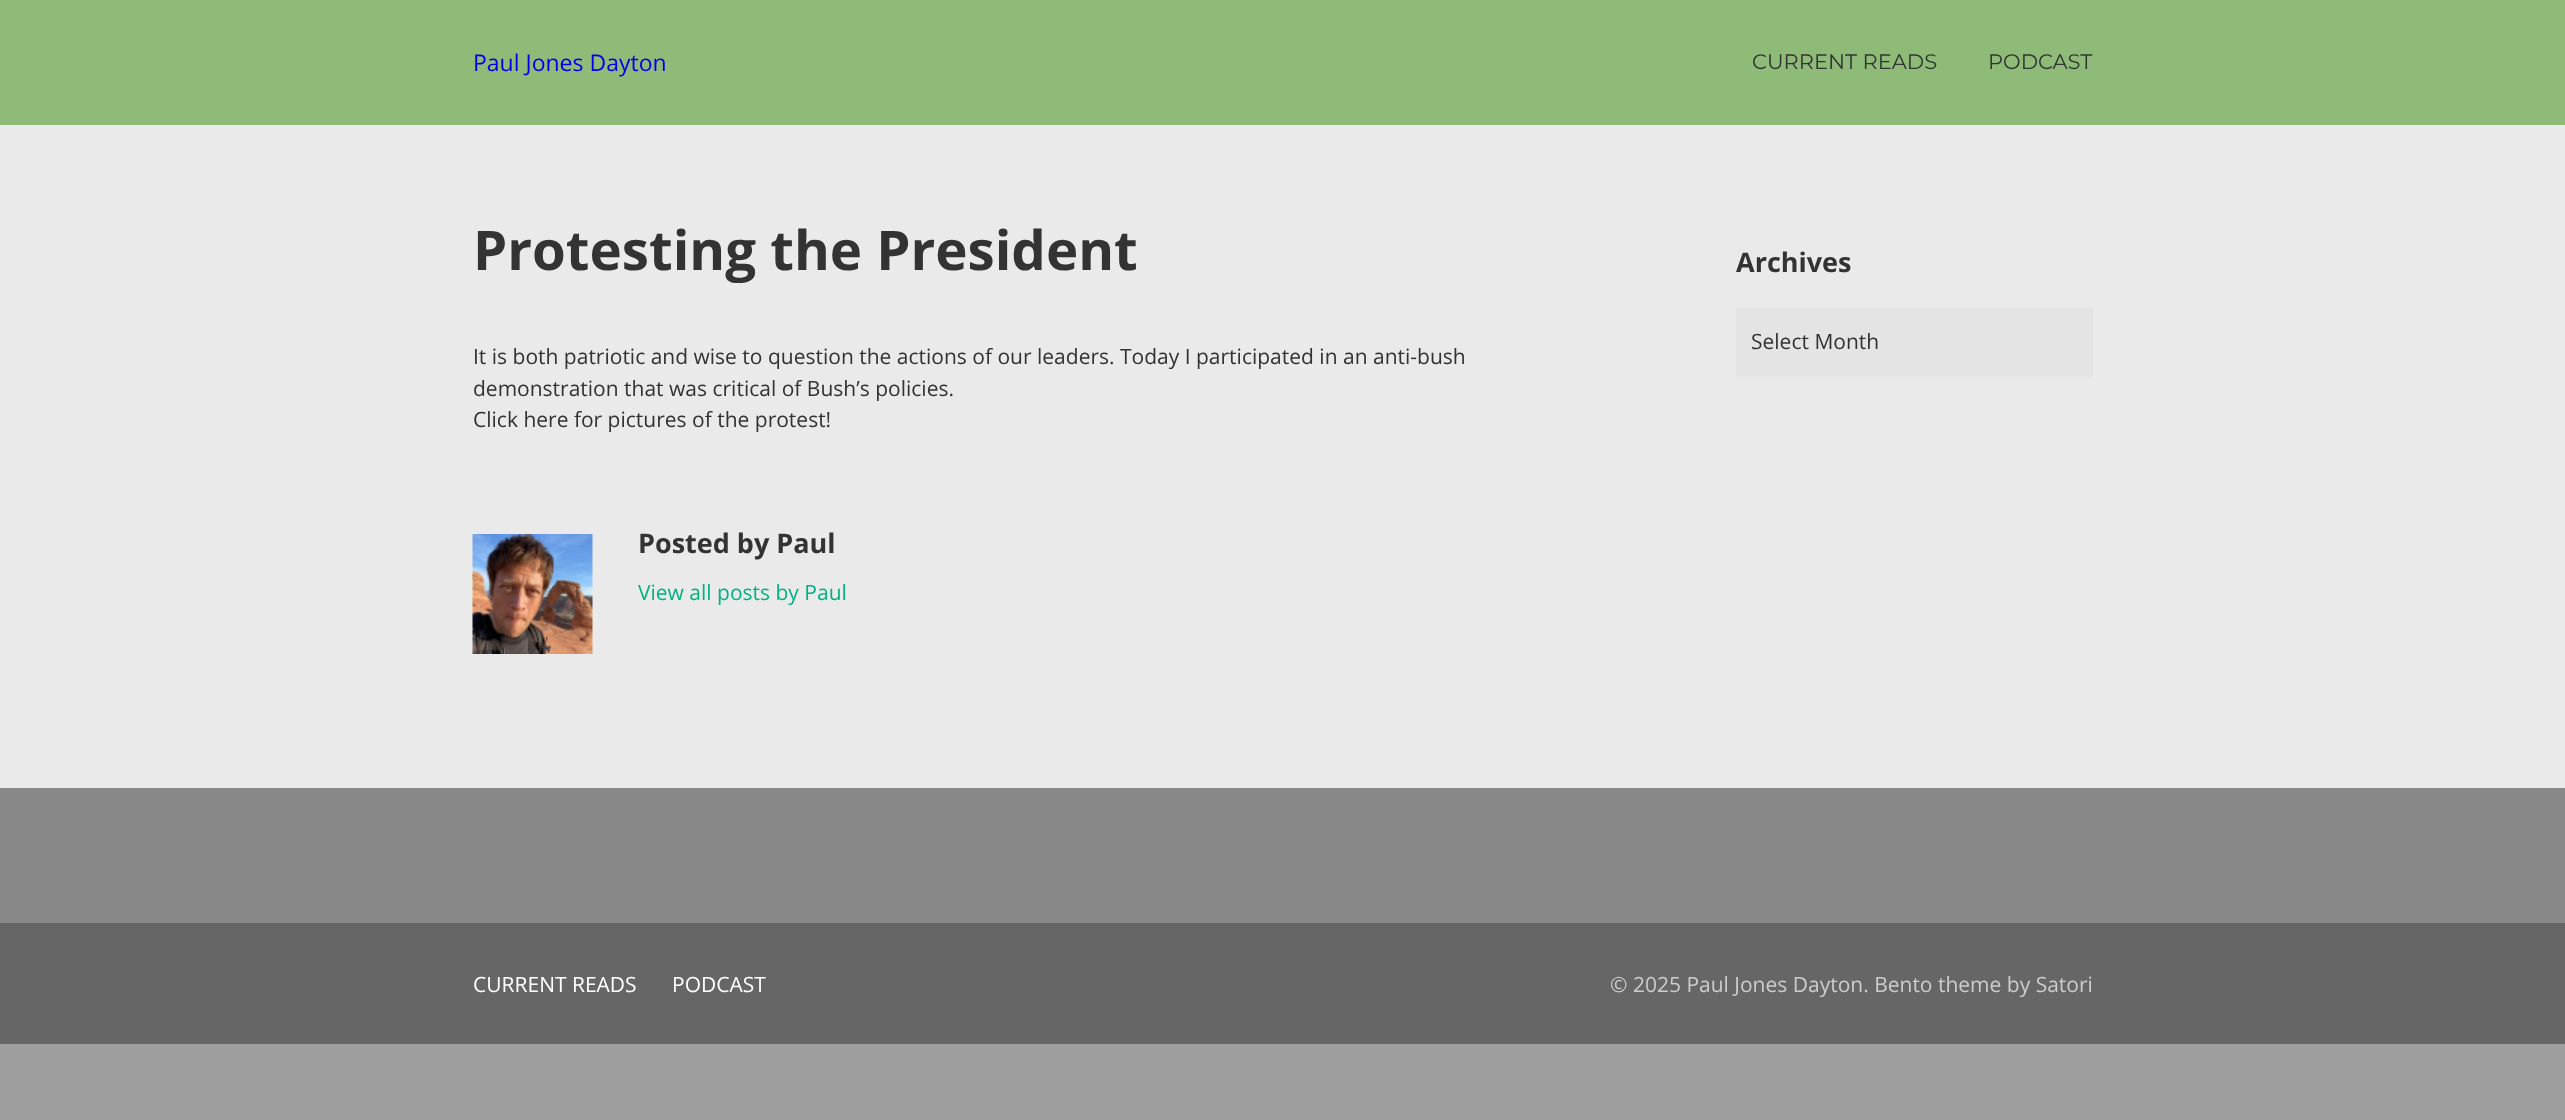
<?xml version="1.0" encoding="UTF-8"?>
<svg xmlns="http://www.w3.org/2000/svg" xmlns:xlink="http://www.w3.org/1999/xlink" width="2565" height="1120">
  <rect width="100%" height="100%" fill="#9e9e9e" />
  <rect width="2565" height="125" fill="#8ebc78" />
  <rect y="125" width="2565" height="663" fill="#eaeaea" />
  <image x="472" y="534" width="121" height="120" xlink:href="image1.png" />
  <rect x="1736" y="308" width="357" height="69" fill="#e4e4e4" />
  <rect y="788" width="2565" height="135" fill="#888888" />
  <rect y="923" width="2565" height="121" fill="#666666" />
  <text x="473" y="71" style="font-family: Open Sans; font-size: 23px; fill: #0000ee">Paul Jones Dayton</text>
  <text x="1752" y="69" style="font-family: Montserrat; font-size: 21px; fill: #333333">CURRENT READS</text>
  <text x="1988" y="69" style="font-family: Montserrat; font-size: 21px; fill: #333333">PODCAST</text>
  <text x="473" y="270" style="font-family: Open Sans; font-size: 54.6px; font-weight: bold; fill: #333333">Protesting the President</text>
  <text x="473" y="364" style="font-family: Open Sans; font-size: 21px; fill: #333333">It is both patriotic and wise to question the actions of our leaders. Today I participated in an anti-bush</text>
  <text x="473" y="396" style="font-family: Open Sans; font-size: 21px; fill: #333333">demonstration that was critical of Bush’s policies.</text>
  <text x="473" y="427" style="font-family: Open Sans; font-size: 21px; fill: #333333">Click here for pictures of the protest!</text>
  <text x="638" y="553" style="font-family: Open Sans; font-size: 27px; font-weight: bold; fill: #333333">Posted by Paul</text>
  <text x="638" y="600" style="font-family: Open Sans; font-size: 21px; fill: #00b285">View all posts by Paul</text>
  <text x="1736" y="272" style="font-family: Open Sans; font-size: 27px; font-weight: bold; fill: #333333">Archives</text>
  <text x="1751" y="349" style="font-family: Open Sans; font-size: 21px; fill: #333333">Select Month</text>
  <text x="473" y="992" style="font-family: Open Sans; font-size: 21px; fill: #ffffff">CURRENT READS</text>
  <text x="672" y="992" style="font-family: Open Sans; font-size: 21px; fill: #ffffff">PODCAST</text>
  <text x="1610" y="992" style="font-family: Open Sans; font-size: 21px; fill: #cccccc">© 2025 Paul Jones Dayton. Bento theme by Satori</text>
</svg>
